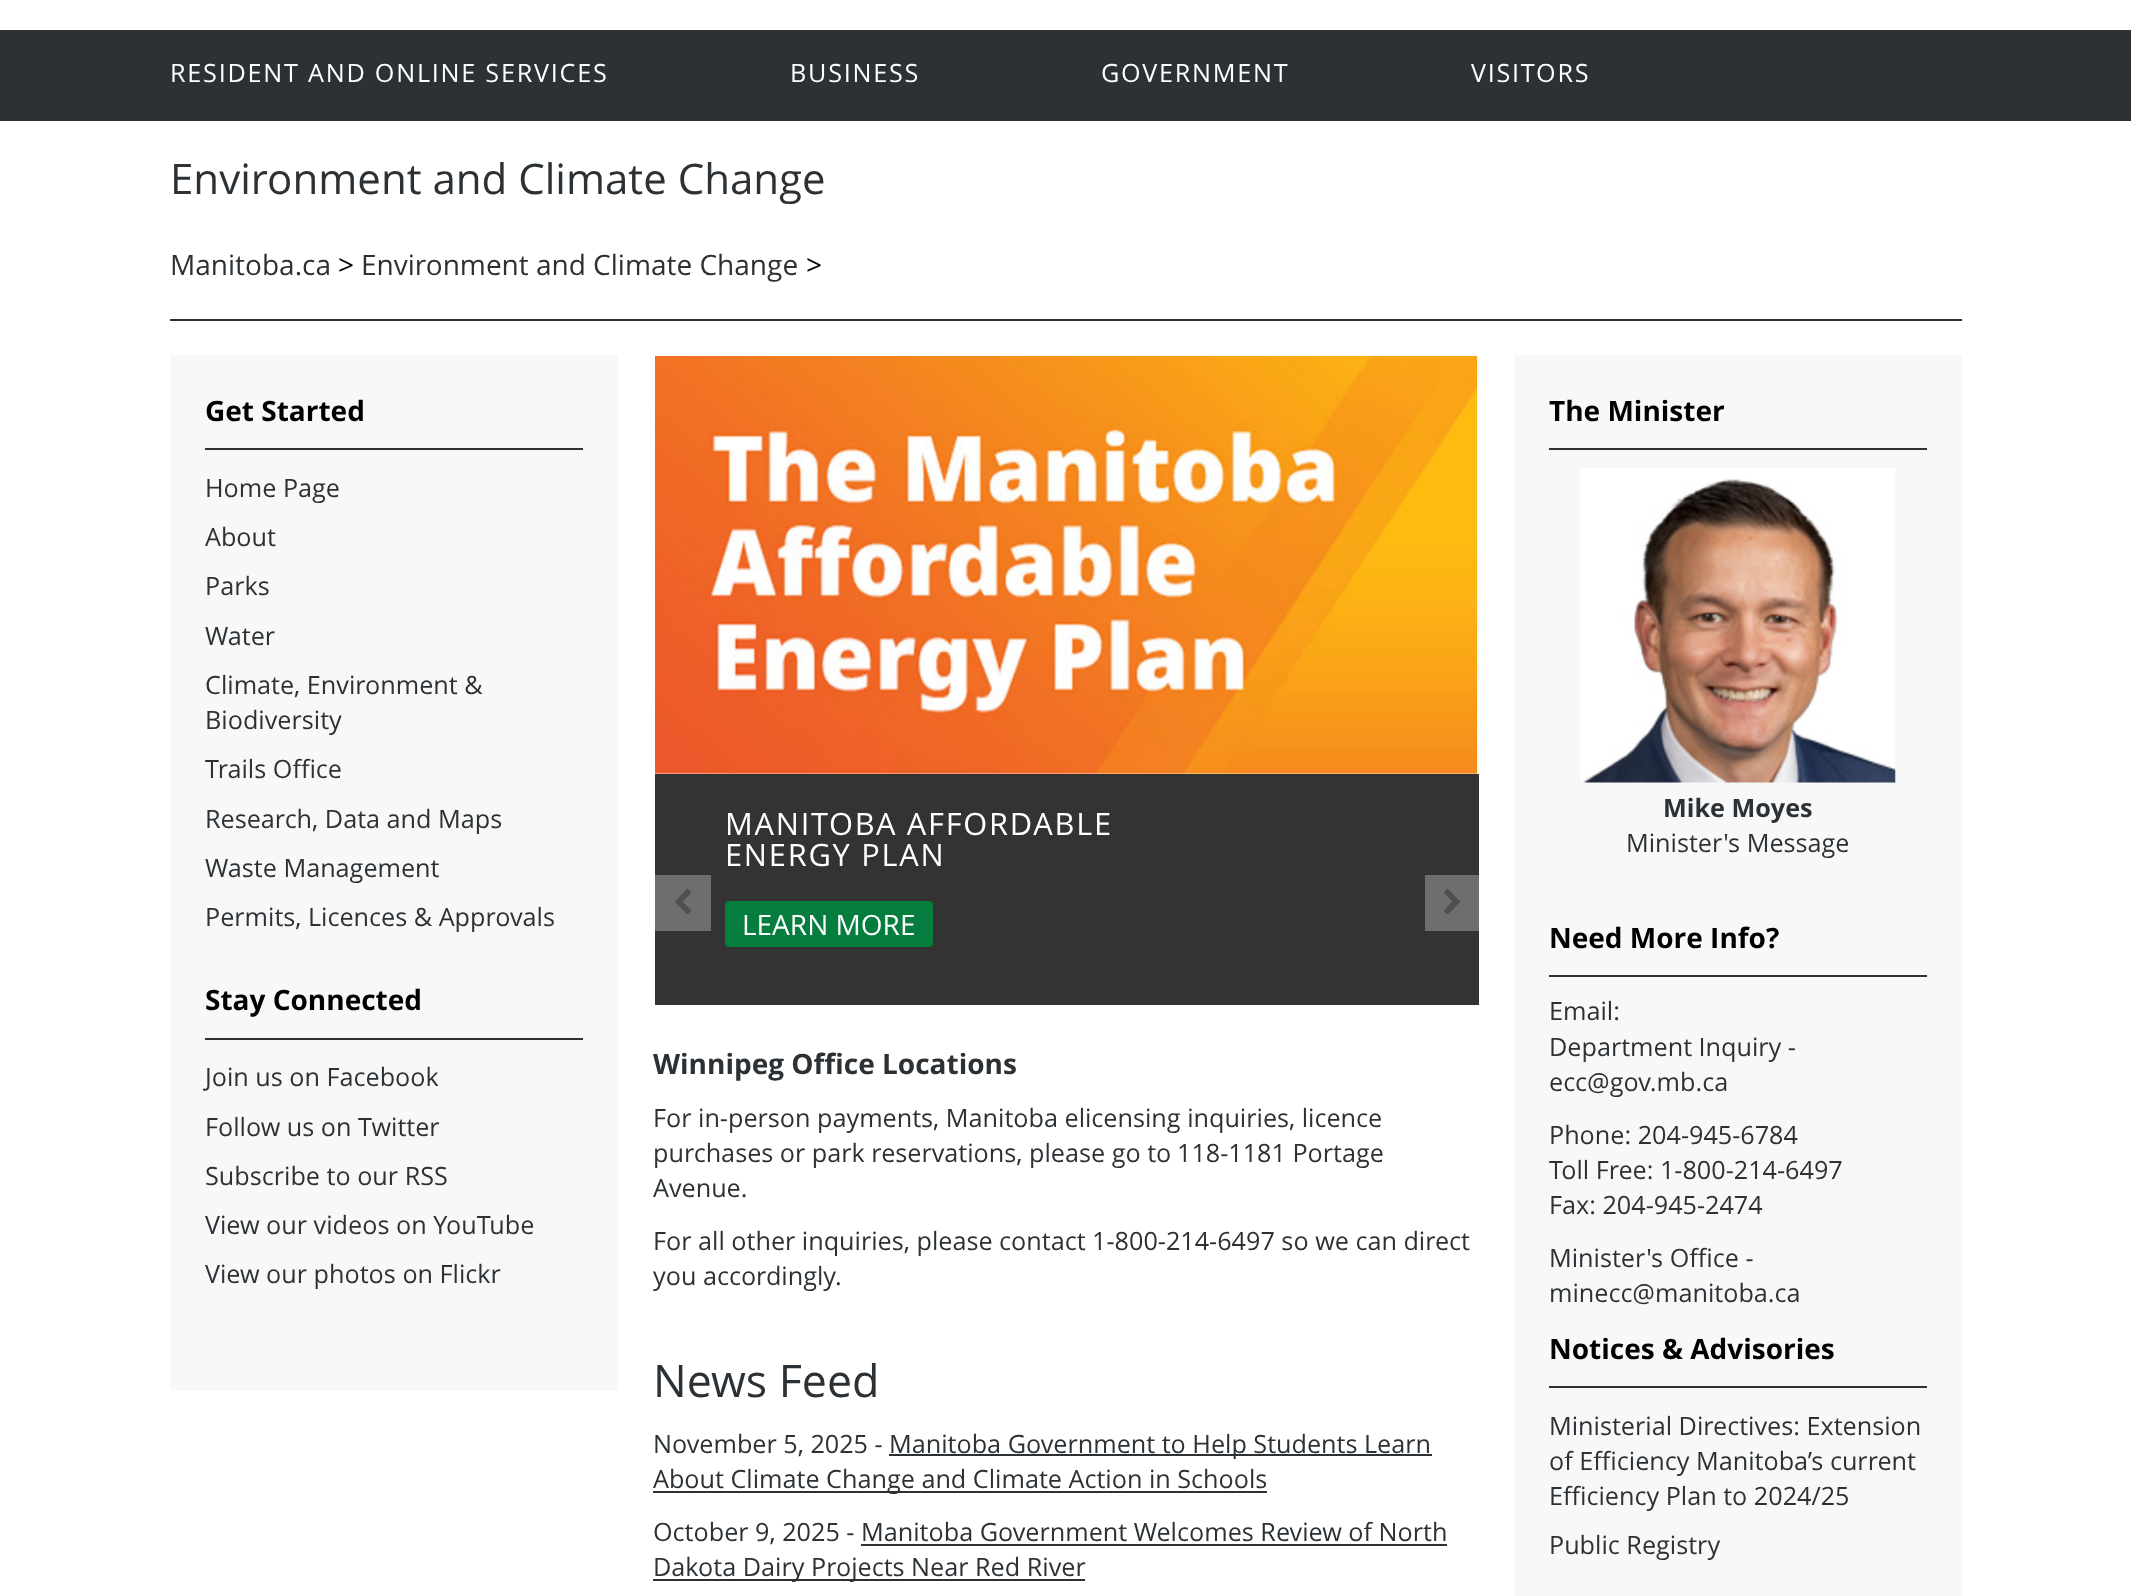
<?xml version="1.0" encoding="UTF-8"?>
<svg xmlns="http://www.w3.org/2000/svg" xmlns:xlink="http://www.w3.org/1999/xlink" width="2131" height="1596">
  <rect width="100%" height="100%" fill="#ffffff" />
  <rect y="30" width="2131" height="91" fill="#2c3135" />
  <rect x="170" y="319" width="1792" height="2" fill="#2c3135" />
  <rect x="170" y="355" width="448" height="1036" fill="#f8f8f8" />
  <rect x="205" y="448" width="378" height="2" fill="#2c3135" />
  <rect x="205" y="1038" width="378" height="2" fill="#2c3135" />
  <image x="655" y="356" width="824" height="419" xlink:href="image2.png" />
  <rect x="655" y="774" width="824" height="231" fill="#000000" fill-opacity="0.8" />
  <rect x="655" y="875" width="56" height="56" fill="#6e6e6e" />
  <image x="675" y="889" width="16" height="26" xlink:href="image1.png" />
  <rect x="725" y="901" width="208" height="46" rx="4" fill="#057d3e" />
  <rect x="1425" y="875" width="54" height="56" fill="#6e6e6e" />
  <image x="1444" y="889" width="16" height="26" xlink:href="image3.png" />
  <rect x="889" y="1454" width="543" height="2" fill="#2c3135" />
  <rect x="653" y="1491" width="614" height="2" fill="#2c3135" />
  <rect x="861" y="1544" width="586" height="2" fill="#2c3135" />
  <rect x="653" y="1579" width="432" height="2" fill="#2c3135" />
  <rect x="1514" y="355" width="448" height="1241" fill="#f8f8f8" />
  <rect x="1549" y="448" width="378" height="2" fill="#2c3135" />
  <image x="1580" y="468" width="316" height="315" xlink:href="image4.png" />
  <rect x="1549" y="975" width="378" height="2" fill="#2c3135" />
  <rect x="1549" y="1386" width="378" height="2" fill="#2c3135" />
  <text x="170" y="82" style="font-family: Open Sans; font-size: 25.2px; letter-spacing: 1.75px; fill: #ffffff">RESIDENT AND ONLINE SERVICES</text>
  <text x="790" y="82" style="font-family: Open Sans; font-size: 25.2px; letter-spacing: 1.75px; fill: #ffffff">BUSINESS</text>
  <text x="1101" y="82" style="font-family: Open Sans; font-size: 25.2px; letter-spacing: 1.75px; fill: #ffffff">GOVERNMENT</text>
  <text x="1471" y="82" style="font-family: Open Sans; font-size: 25.2px; letter-spacing: 1.75px; fill: #ffffff">VISITORS</text>
  <text x="170" y="194" style="font-family: Open Sans; font-size: 42px; fill: #2c3135">Environment and Climate Change</text>
  <text x="170" y="275" style="font-family: Open Sans; font-size: 28px; fill: #2c3135">Manitoba.ca</text>
  <text x="338" y="275" style="font-family: Open Sans; font-size: 28px; fill: #000000">&gt;</text>
  <text x="361" y="275" style="font-family: Open Sans; font-size: 28px; fill: #2c3135">Environment and Climate Change</text>
  <text x="806" y="275" style="font-family: Open Sans; font-size: 28px; fill: #000000">&gt;</text>
  <text x="205" y="421" style="font-family: Open Sans; font-size: 28px; font-weight: bold; fill: #000000">Get Started</text>
  <text x="205" y="497" style="font-family: Open Sans; font-size: 25.2px; fill: #2c3135">Home Page</text>
  <text x="205" y="546" style="font-family: Open Sans; font-size: 25.2px; fill: #2c3135">About</text>
  <text x="205" y="595" style="font-family: Open Sans; font-size: 25.2px; fill: #2c3135">Parks</text>
  <text x="205" y="645" style="font-family: Open Sans; font-size: 25.2px; fill: #2c3135">Water</text>
  <text x="205" y="694" style="font-family: Open Sans; font-size: 25.2px; fill: #2c3135">Climate, Environment &amp;</text>
  <text x="205" y="729" style="font-family: Open Sans; font-size: 25.2px; fill: #2c3135">Biodiversity</text>
  <text x="205" y="778" style="font-family: Open Sans; font-size: 25.2px; fill: #2c3135">Trails Office</text>
  <text x="205" y="828" style="font-family: Open Sans; font-size: 25.2px; fill: #2c3135">Research, Data and Maps</text>
  <text x="205" y="877" style="font-family: Open Sans; font-size: 25.2px; fill: #2c3135">Waste Management</text>
  <text x="205" y="926" style="font-family: Open Sans; font-size: 25.2px; fill: #2c3135">Permits, Licences &amp; Approvals</text>
  <text x="205" y="1010" style="font-family: Open Sans; font-size: 28px; font-weight: bold; fill: #000000">Stay Connected</text>
  <text x="205" y="1086" style="font-family: Open Sans; font-size: 25.2px; fill: #2c3135">Join us on Facebook</text>
  <text x="205" y="1136" style="font-family: Open Sans; font-size: 25.2px; fill: #2c3135">Follow us on Twitter</text>
  <text x="205" y="1185" style="font-family: Open Sans; font-size: 25.2px; fill: #2c3135">Subscribe to our RSS</text>
  <text x="205" y="1234" style="font-family: Open Sans; font-size: 25.2px; fill: #2c3135">View our videos on YouTube</text>
  <text x="205" y="1283" style="font-family: Open Sans; font-size: 25.2px; fill: #2c3135">View our photos on Flickr</text>
  <text x="725" y="835" style="font-family: Open Sans; font-size: 30.75px; letter-spacing: 1.75px; fill: #ffffff">MANITOBA AFFORDABLE</text>
  <text x="725" y="866" style="font-family: Open Sans; font-size: 30.75px; letter-spacing: 1.75px; fill: #ffffff">ENERGY PLAN</text>
  <text x="742" y="935" style="font-family: Open Sans; font-size: 28px; fill: #ffffff">LEARN MORE</text>
  <text x="653" y="1074" style="font-family: Open Sans; font-size: 28px; font-weight: bold; fill: #2c3135">Winnipeg Office Locations</text>
  <text x="653" y="1127" style="font-family: Open Sans; font-size: 25.2px; fill: #2c3135">For in-person payments, Manitoba elicensing inquiries, licence</text>
  <text x="653" y="1162" style="font-family: Open Sans; font-size: 25.2px; fill: #2c3135">purchases or park reservations, please go to</text>
  <text x="1177" y="1162" style="font-family: Open Sans; font-size: 25.2px; fill: #2c3135">118-1181 Portage</text>
  <text x="653" y="1197" style="font-family: Open Sans; font-size: 25.2px; fill: #2c3135">Avenue.</text>
  <text x="653" y="1250" style="font-family: Open Sans; font-size: 25.2px; fill: #2c3135">For all other inquiries, please contact 1-800-214-6497 so we can direct</text>
  <text x="653" y="1285" style="font-family: Open Sans; font-size: 25.2px; fill: #2c3135">you accordingly.</text>
  <text x="653" y="1397" style="font-family: Open Sans; font-size: 44.75px; fill: #2c3135">News Feed</text>
  <text x="653" y="1453" style="font-family: Open Sans; font-size: 25.2px; fill: #2c3135">November 5, 2025 -</text>
  <text x="889" y="1453" style="font-family: Open Sans; font-size: 25.2px; fill: #2c3135">Manitoba Government to Help Students Learn</text>
  <text x="653" y="1488" style="font-family: Open Sans; font-size: 25.2px; fill: #2c3135">About Climate Change and Climate Action in Schools</text>
  <text x="653" y="1541" style="font-family: Open Sans; font-size: 25.2px; fill: #2c3135">October 9, 2025 - Manitoba Government Welcomes Review of North</text>
  <text x="653" y="1576" style="font-family: Open Sans; font-size: 25.2px; fill: #2c3135">Dakota Dairy Projects Near Red River</text>
  <text x="1549" y="421" style="font-family: Open Sans; font-size: 28px; font-weight: bold; fill: #000000">The Minister</text>
  <text x="1663" y="817" style="font-family: Open Sans; font-size: 25.2px; font-weight: bold; fill: #2c3135">Mike Moyes</text>
  <text x="1626" y="852" style="font-family: Open Sans; font-size: 25.2px; fill: #2c3135">Minister's Message</text>
  <text x="1549" y="948" style="font-family: Open Sans; font-size: 28px; font-weight: bold; fill: #000000">Need More Info?</text>
  <text x="1549" y="1020" style="font-family: Open Sans; font-size: 25.2px; fill: #2c3135">Email:</text>
  <text x="1549" y="1056" style="font-family: Open Sans; font-size: 25.2px; fill: #2c3135">Department Inquiry -</text>
  <text x="1549" y="1091" style="font-family: Open Sans; font-size: 25.2px; fill: #2c3135">ecc@gov.mb.ca</text>
  <text x="1549" y="1144" style="font-family: Open Sans; font-size: 25.2px; fill: #2c3135">Phone: 204-945-6784</text>
  <text x="1549" y="1179" style="font-family: Open Sans; font-size: 25.2px; fill: #2c3135">Toll Free: 1-800-214-6497</text>
  <text x="1549" y="1214" style="font-family: Open Sans; font-size: 25.2px; fill: #2c3135">Fax: 204-945-2474</text>
  <text x="1549" y="1267" style="font-family: Open Sans; font-size: 25.2px; fill: #2c3135">Minister's Office -</text>
  <text x="1549" y="1302" style="font-family: Open Sans; font-size: 25.2px; fill: #2c3135">minecc@manitoba.ca</text>
  <text x="1549" y="1359" style="font-family: Open Sans; font-size: 28px; font-weight: bold; fill: #000000">Notices &amp; Advisories</text>
  <text x="1549" y="1435" style="font-family: Open Sans; font-size: 25.2px; fill: #2c3135">Ministerial Directives: Extension</text>
  <text x="1549" y="1470" style="font-family: Open Sans; font-size: 25.2px; fill: #2c3135">of Efficiency Manitoba’s current</text>
  <text x="1549" y="1505" style="font-family: Open Sans; font-size: 25.2px; fill: #2c3135">Efficiency Plan to 2024/25</text>
  <text x="1549" y="1554" style="font-family: Open Sans; font-size: 25.2px; fill: #2c3135">Public Registry</text>
</svg>
